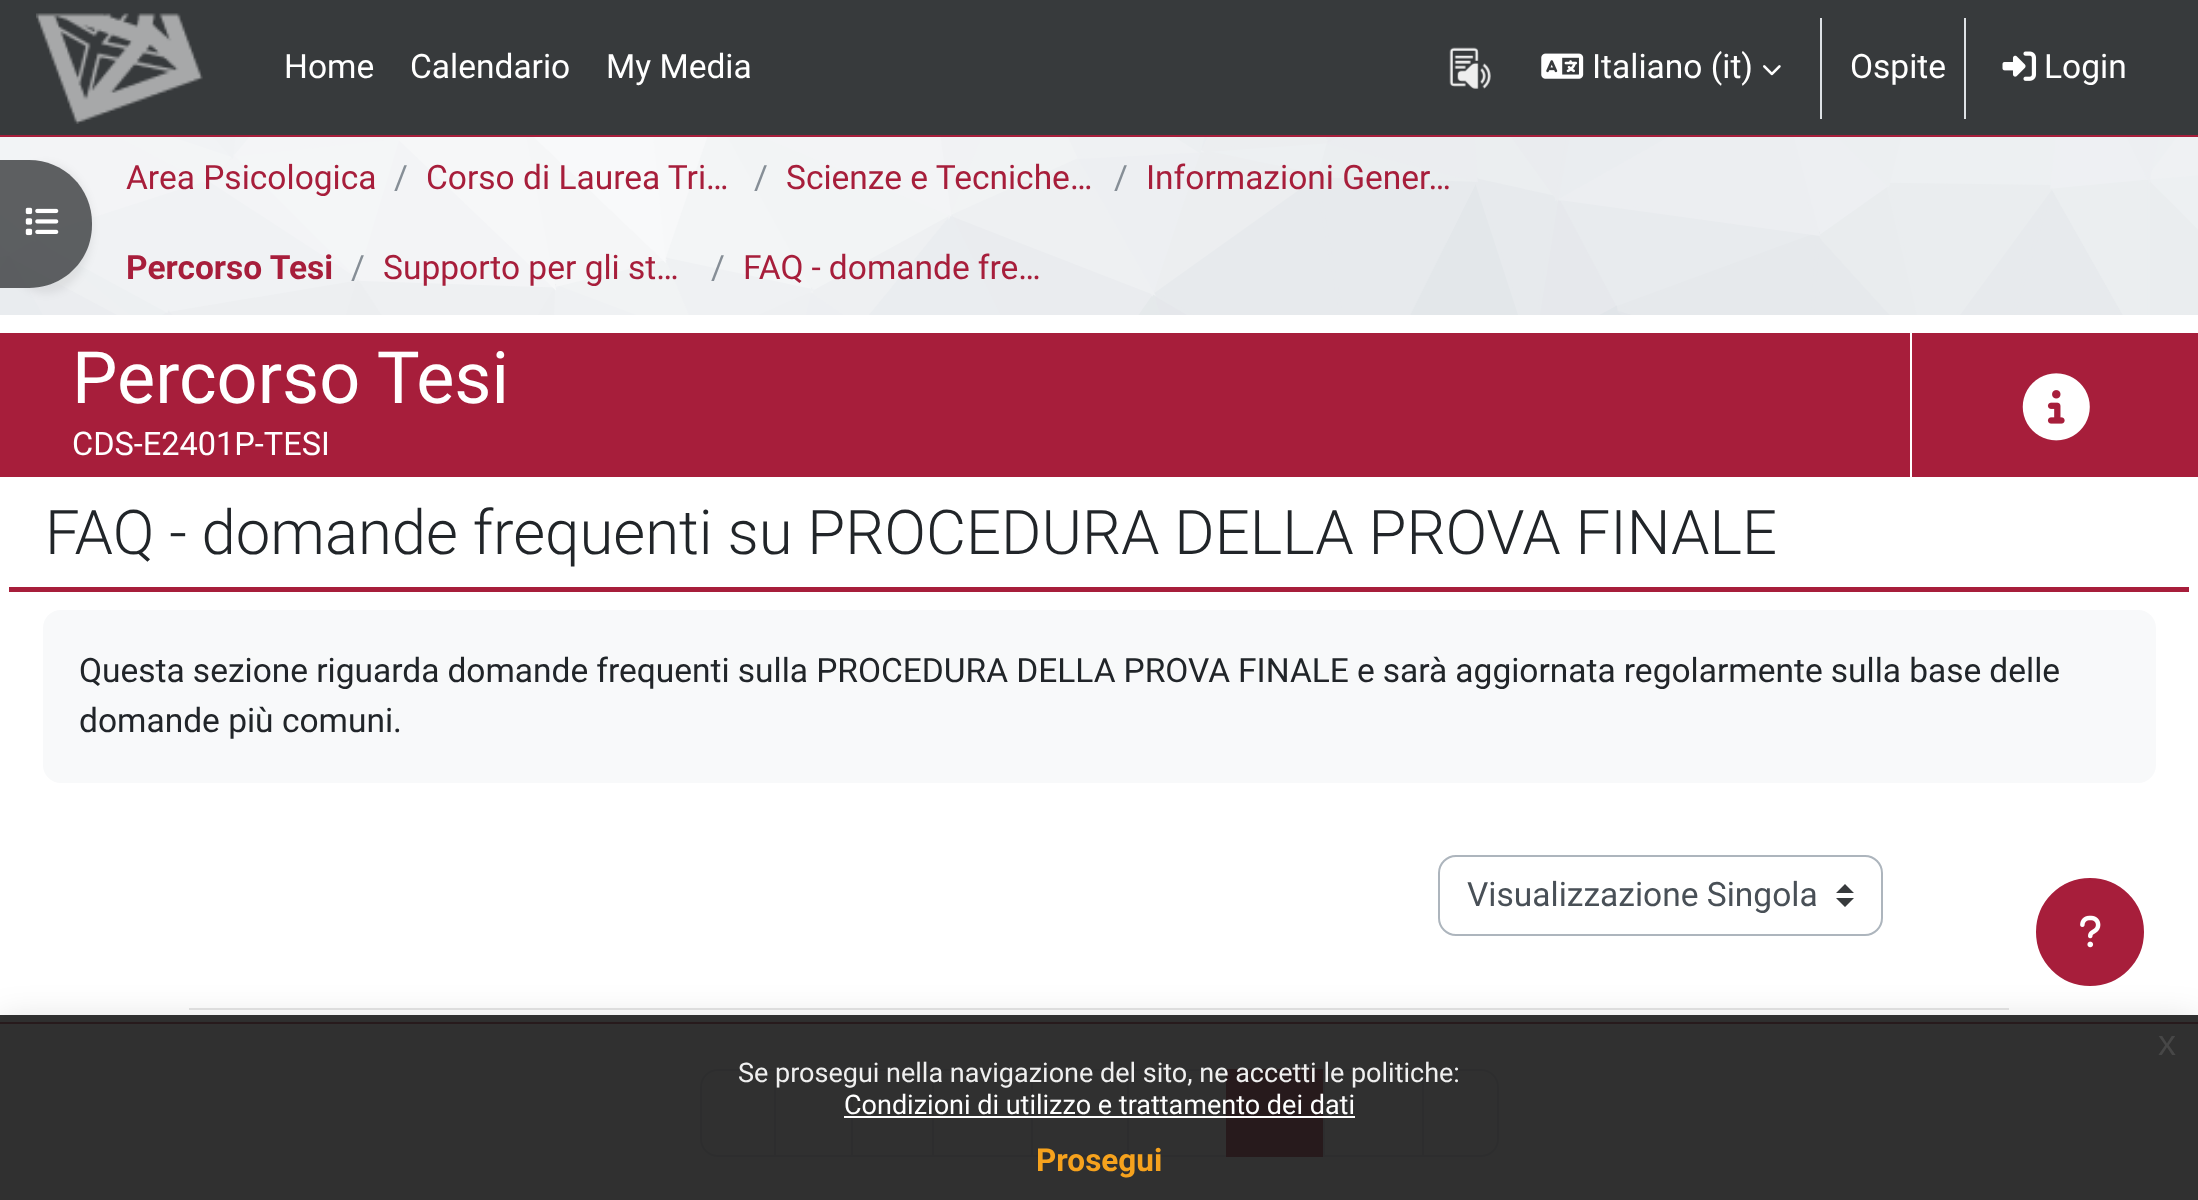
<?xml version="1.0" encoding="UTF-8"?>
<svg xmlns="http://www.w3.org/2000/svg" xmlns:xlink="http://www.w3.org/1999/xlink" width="2198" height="1200">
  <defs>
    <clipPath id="clip1"><path d="M 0 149 h 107 v 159 h -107 z m 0 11 h 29 c 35 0 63 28 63 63 v 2 c 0 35 -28 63 -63 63 h -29 z" clip-rule="evenodd" /></clipPath>
  </defs>
  <rect width="100%" height="100%" fill="#ffffff" />
  <rect width="2198" height="135" fill="#373a3c" />
  <rect y="135" width="2198" height="2" fill="#a71e3b" />
  <image x="36" y="13" width="167" height="111" xlink:href="image1.png" />
  <image x="1449" y="47" width="42" height="42" xlink:href="image2.png" />
  <image x="1541" y="53" width="43" height="26" xlink:href="image3.png" />
  <image x="1763" y="65" width="18" height="11" xlink:href="image4.png" />
  <rect x="1820" y="18" width="2" height="101" fill="#dee2e6" />
  <rect x="1964" y="18" width="2" height="101" fill="#dee2e6" />
  <image x="2002" y="51" width="35" height="30" xlink:href="image5.png" />
  <image x="0" y="137" width="2198" height="178" xlink:href="image7.png" />
  <g clip-path="url(#clip1)">
    <rect y="164" width="92" height="129" rx="63" fill="#000000" fill-opacity="0.07" filter="blur(4.5px)" />
  </g>
  <path d="M 0 160 h 29 c 35 0 63 28 63 63 v 2 c 0 35 -28 63 -63 63 h -29 z" fill="#373a3c" fill-opacity="0.8" />
  <image x="25" y="207" width="34" height="29" xlink:href="image6.png" />
  <rect y="333" width="2198" height="144" fill="#a71e3b" />
  <rect x="1910" y="333" width="2" height="144" fill="#ffffff" />
  <image x="2022" y="373" width="68" height="68" xlink:href="image8.png" />
  <rect x="9" y="587" width="2180" height="5" fill="#a71e3b" />
  <rect x="43" y="610" width="2113" height="173" rx="18" fill="#f8f9fa" />
  <path d="M 1845 884 l -9 9 h 18 z m 0 23 l -9 -9 h 18 z" fill="#373a3c" />
  <rect x="1439" y="856" width="443" height="79" rx="17" fill="none" stroke="#adb5bd" stroke-width="2" />
  <rect x="189" y="1008" width="1820" height="2" fill="#e6e6e6" />
  <circle cx="2090" cy="932" r="53" fill="#a71e3b" stroke="#a71e3b" stroke-width="2" />
  <rect y="1022" width="2198" height="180" fill="#000000" fill-opacity="0.15" filter="blur(18px)" />
  <rect y="1024" width="2198" height="176" fill="#ffffff" />
  <rect y="1022" width="2198" height="2" fill="#a71e3b" />
  <path d="M 718 1070 h 57 v 86 h -57 c -9.5 0 -17 -7.5 -17 -17 v -52 c 0 -9.5 7.5 -17 17 -17 z" fill="none" stroke="#dee2e6" stroke-width="2" />
  <rect x="775" y="1070" width="77" height="86" fill="none" stroke="#dee2e6" stroke-width="2" />
  <rect x="852" y="1070" width="81" height="86" fill="none" stroke="#dee2e6" stroke-width="2" />
  <rect x="933" y="1070" width="99" height="86" fill="none" stroke="#dee2e6" stroke-width="2" />
  <rect x="1032" y="1070" width="97" height="86" fill="none" stroke="#dee2e6" stroke-width="2" />
  <rect x="1129" y="1071" width="1" height="84" fill="#ffffff" />
  <rect x="1128" y="1070" width="100" height="86" fill="none" stroke="#dee2e6" stroke-width="2" />
  <rect x="1226" y="1069" width="97" height="88" fill="#a71e3b" />
  <rect x="1324" y="1070" width="99" height="86" fill="none" stroke="#dee2e6" stroke-width="2" />
  <path d="M 1423 1070 h 58 c 9.5 0 17 7.5 17 17 v 52 c 0 9.5 -7.5 17 -17 17 h -58 z" fill="#ffffff" stroke="#dee2e6" stroke-width="2" />
  <image x="2080" y="915" width="21" height="33" xlink:href="image9.png" />
  <rect y="1015" width="2198" height="185" fill="#191919" fill-opacity="0.9" />
  <rect x="844" y="1116" width="511" height="2" fill="#ffffff" />
  <text x="284" y="78" style="font-family: Roboto; font-size: 33.52px; fill: #ffffff">Home</text>
  <text x="410" y="78" style="font-family: Roboto; font-size: 33.52px; fill: #ffffff">Calendario</text>
  <text x="606" y="78" style="font-family: Roboto; font-size: 33.52px; fill: #ffffff">My Media</text>
  <text x="1592" y="78" style="font-family: Roboto; font-size: 33.52px; fill: #ffffff">Italiano (it)</text>
  <text x="1850" y="78" style="font-family: Roboto; font-size: 33.52px; fill: #ffffff">Ospite</text>
  <text x="2044" y="78" style="font-family: Roboto; font-size: 33.52px; fill: #ffffff">Login</text>
  <text x="126" y="189" style="font-family: Roboto; font-size: 33.52px; fill: #a71e3b">Area Psicologica</text>
  <text x="394" y="189" style="font-family: Roboto; font-size: 33.52px; fill: #868e96">/</text>
  <text x="426" y="189" style="font-family: Roboto; font-size: 33.52px; fill: #a71e3b">Corso di Laurea Tri…</text>
  <text x="754" y="189" style="font-family: Roboto; font-size: 33.52px; fill: #868e96">/</text>
  <text x="786" y="189" style="font-family: Roboto; font-size: 33.52px; fill: #a71e3b">Scienze e Tecniche…</text>
  <text x="1114" y="189" style="font-family: Roboto; font-size: 33.52px; fill: #868e96">/</text>
  <text x="1146" y="189" style="font-family: Roboto; font-size: 33.52px; fill: #a71e3b">Informazioni Gener…</text>
  <text x="126" y="279" style="font-family: Roboto; font-size: 33.52px; font-weight: bold; fill: #a71e3b">Percorso Tesi</text>
  <text x="351" y="279" style="font-family: Roboto; font-size: 33.52px; fill: #868e96">/</text>
  <text x="383" y="279" style="font-family: Roboto; font-size: 33.52px; fill: #a71e3b">Supporto per gli st…</text>
  <text x="711" y="279" style="font-family: Roboto; font-size: 33.52px; fill: #868e96">/</text>
  <text x="743" y="279" word-spacing="-0.25" style="font-family: Roboto; font-size: 33.52px; fill: #a71e3b">FAQ - domande fre…</text>
  <text x="72" y="403" style="font-family: Roboto; font-size: 72px; fill: #ffffff">Percorso Tesi</text>
  <text x="72" y="455" style="font-family: Roboto; font-size: 32.5px; fill: #ffffff">CDS-E2401P-TESI</text>
  <text x="45" y="554" word-spacing="-0.25" style="font-family: Roboto; font-size: 61.6px; font-weight: 300; fill: #212529">FAQ - domande frequenti su PROCEDURA DELLA PROVA FINALE</text>
  <text x="79" y="682" word-spacing="-0.25" style="font-family: Roboto; font-size: 33.52px; fill: #212529">Questa sezione riguarda domande frequenti sulla PROCEDURA DELLA PROVA FINALE e sarà aggiornata regolarmente sulla base delle</text>
  <text x="79" y="732" style="font-family: Roboto; font-size: 33.52px; fill: #212529">domande più comuni.</text>
  <text x="1467" y="906" style="font-family: Roboto; font-size: 33.52px; fill: #495057">Visualizzazione Singola</text>
  <text x="2158" y="1055" style="font-family: Liberation Sans; font-size: 36px; fill: #474747">x</text>
  <text x="738" y="1082" style="font-family: Roboto; font-size: 27px; fill: #efefef">Se prosegui nella navigazione del sito, ne accetti le politiche:</text>
  <text x="844" y="1114" style="font-family: Roboto; font-size: 27px; fill: #ffffff">Condizioni di utilizzo e trattamento dei dati</text>
  <text x="1036" y="1171" style="font-family: Roboto; font-size: 31.5px; font-weight: bold; fill: #f6a21d">Prosegui</text>
</svg>
